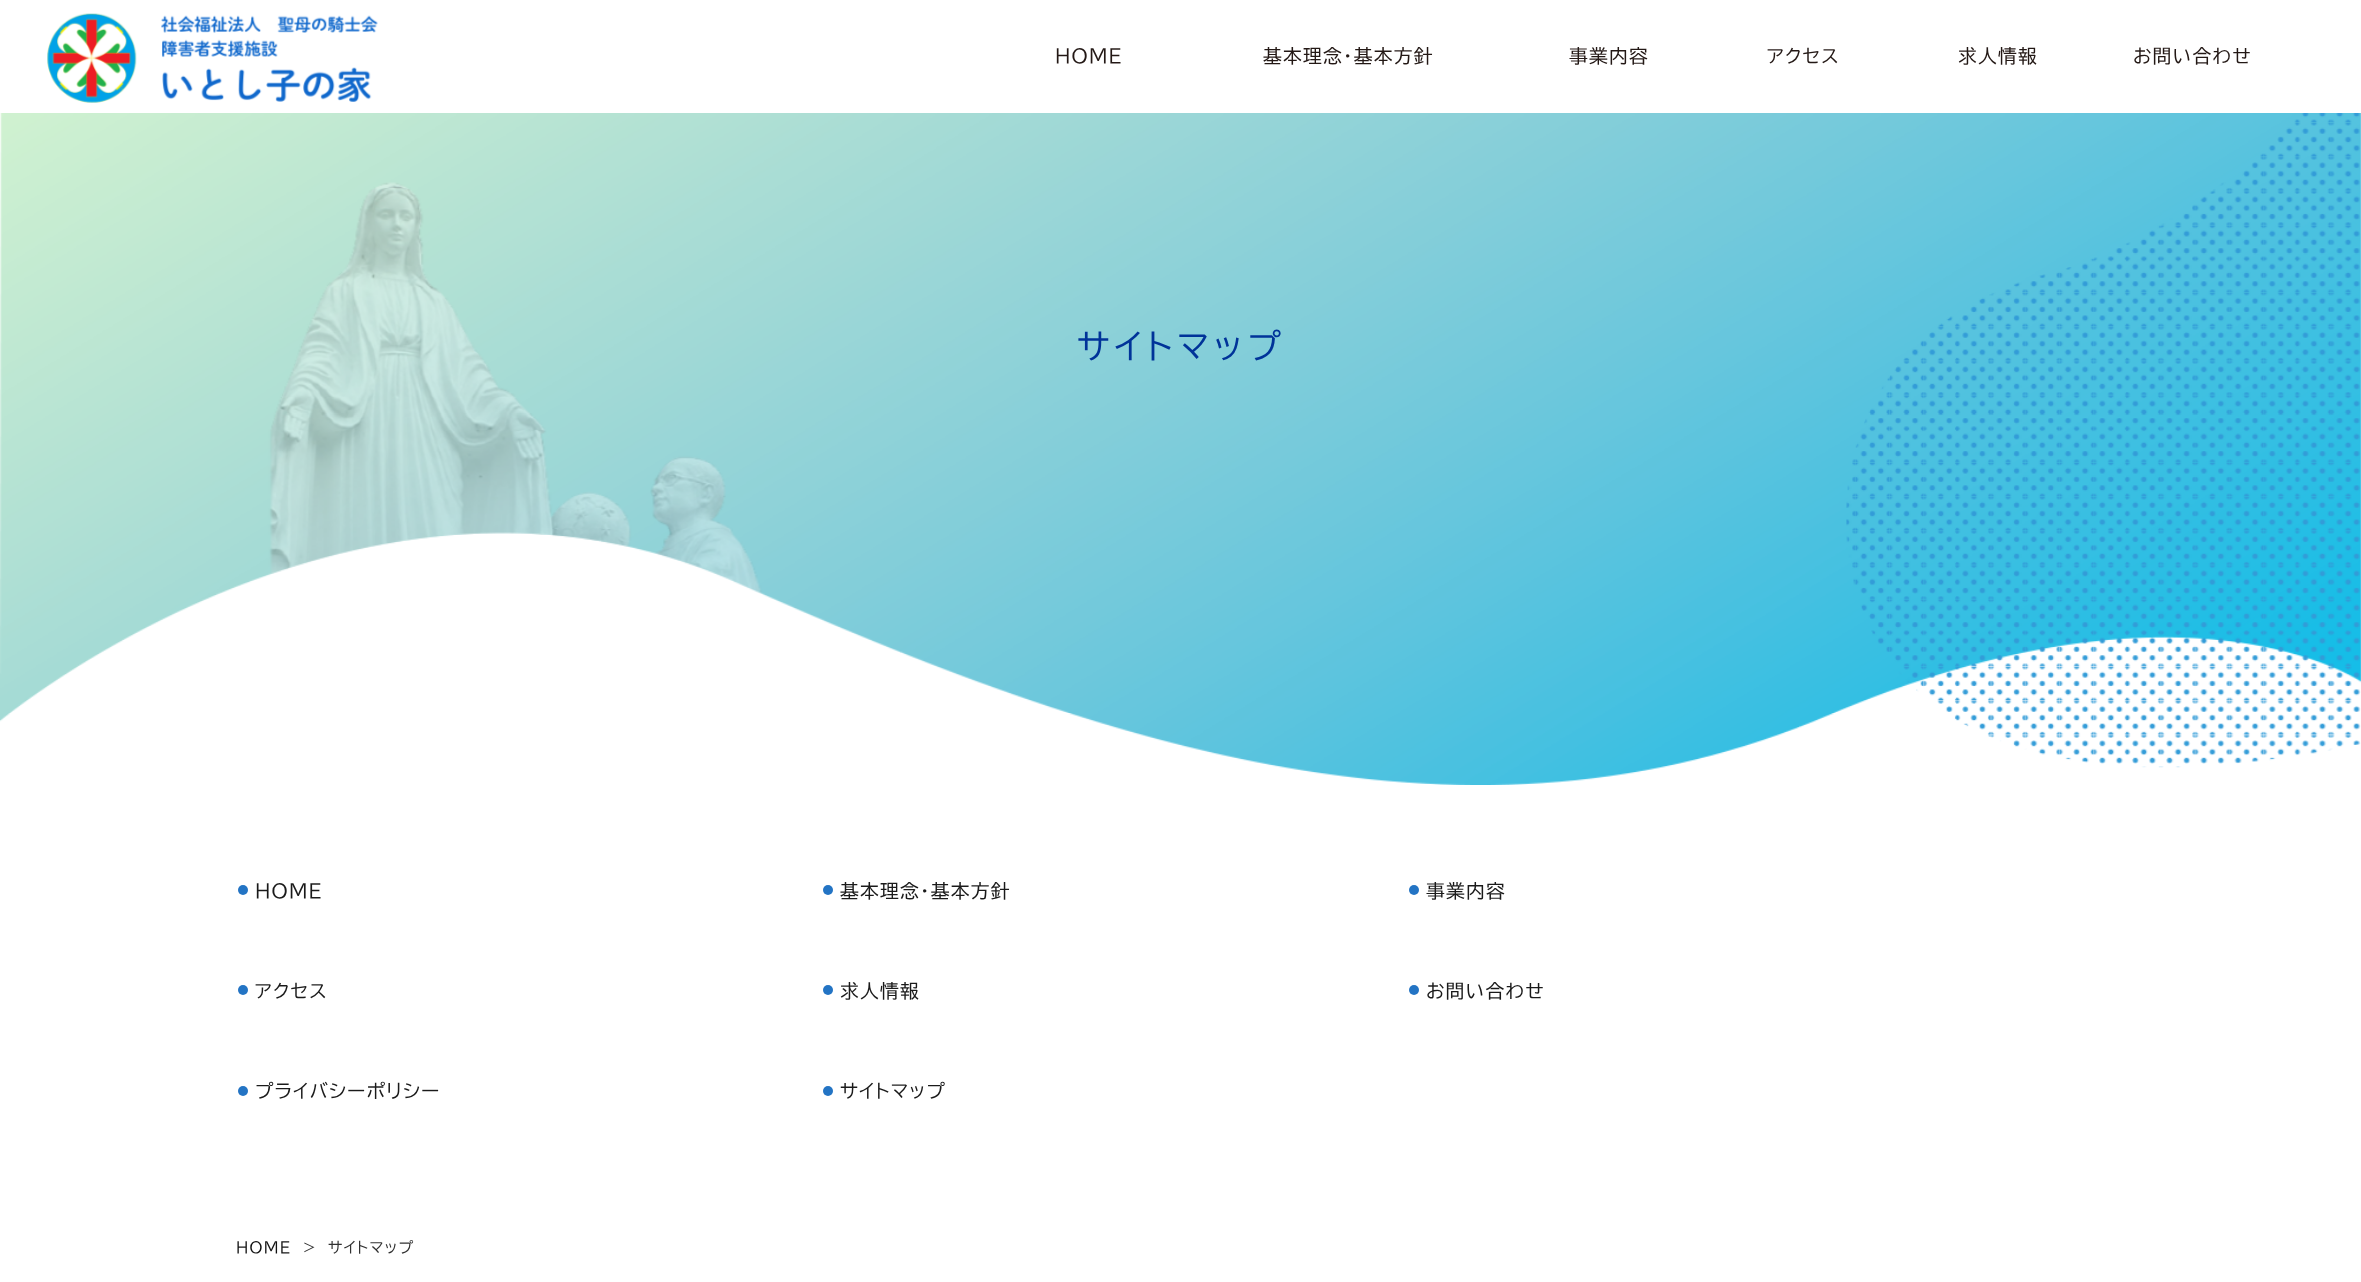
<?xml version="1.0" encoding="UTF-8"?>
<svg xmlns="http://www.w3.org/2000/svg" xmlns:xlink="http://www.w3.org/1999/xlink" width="2361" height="1282">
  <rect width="100%" height="100%" fill="#ffffff" />
  <image x="47" y="13" width="331" height="90" xlink:href="image1.png" />
  <image x="0" y="113" width="2361" height="672" xlink:href="image2.png" />
  <circle cx="243" cy="890" r="5" fill="#2374c4" />
  <circle cx="828" cy="890" r="5" fill="#2374c4" />
  <circle cx="1414" cy="890" r="5" fill="#2374c4" />
  <circle cx="243" cy="990" r="5" fill="#2374c4" />
  <circle cx="828" cy="990" r="5" fill="#2374c4" />
  <circle cx="1414" cy="990" r="5" fill="#2374c4" />
  <circle cx="243" cy="1091" r="5" fill="#2374c4" />
  <circle cx="828" cy="1091" r="5" fill="#2374c4" />
  <text x="1055" y="63" style="font-family: BIZ UDPGothic; font-size: 18.75px; letter-spacing: 1.25px; fill: #231815">HOME</text>
  <text x="1263" y="63" style="font-family: BIZ UDPGothic; font-size: 18.75px; letter-spacing: 1.25px; fill: #231815">基本理念・基本方針</text>
  <text x="1569" y="63" style="font-family: BIZ UDPGothic; font-size: 18.75px; letter-spacing: 1.25px; fill: #231815">事業内容</text>
  <text x="1767" y="63" style="font-family: BIZ UDPGothic; font-size: 18.75px; letter-spacing: 1.25px; fill: #231815">アクセス</text>
  <text x="1958" y="63" style="font-family: BIZ UDPGothic; font-size: 18.75px; letter-spacing: 1.25px; fill: #231815">求人情報</text>
  <text x="2133" y="63" style="font-family: BIZ UDPGothic; font-size: 18.75px; letter-spacing: 1.25px; fill: #231815">お問い合わせ</text>
  <text x="1077" y="359" style="font-family: BIZ UDPGothic; font-size: 34px; letter-spacing: 5px; fill: #003399">サイトマップ</text>
  <text x="255" y="898" style="font-family: BIZ UDPGothic; font-size: 18.75px; letter-spacing: 1.25px; fill: #1a1a1a">HOME</text>
  <text x="840" y="898" style="font-family: BIZ UDPGothic; font-size: 18.75px; letter-spacing: 1.25px; fill: #1a1a1a">基本理念・基本方針</text>
  <text x="1426" y="898" style="font-family: BIZ UDPGothic; font-size: 18.75px; letter-spacing: 1.25px; fill: #1a1a1a">事業内容</text>
  <text x="255" y="998" style="font-family: BIZ UDPGothic; font-size: 18.75px; letter-spacing: 1.25px; fill: #1a1a1a">アクセス</text>
  <text x="840" y="998" style="font-family: BIZ UDPGothic; font-size: 18.75px; letter-spacing: 1.25px; fill: #1a1a1a">求人情報</text>
  <text x="1426" y="998" style="font-family: BIZ UDPGothic; font-size: 18.75px; letter-spacing: 1.25px; fill: #1a1a1a">お問い合わせ</text>
  <text x="255" y="1098" style="font-family: BIZ UDPGothic; font-size: 18.75px; letter-spacing: 1.25px; fill: #1a1a1a">プライバシーポリシー</text>
  <text x="840" y="1098" style="font-family: BIZ UDPGothic; font-size: 18.75px; letter-spacing: 1.25px; fill: #1a1a1a">サイトマップ</text>
  <text x="236" y="1253" style="font-family: BIZ UDPGothic; font-size: 15px; letter-spacing: 1.25px; fill: #111111">HOME</text>
  <text x="303" y="1253" style="font-family: BIZ UDPGothic; font-size: 15px; letter-spacing: 1.25px; fill: #323232">&gt;　サイトマップ</text>
</svg>
